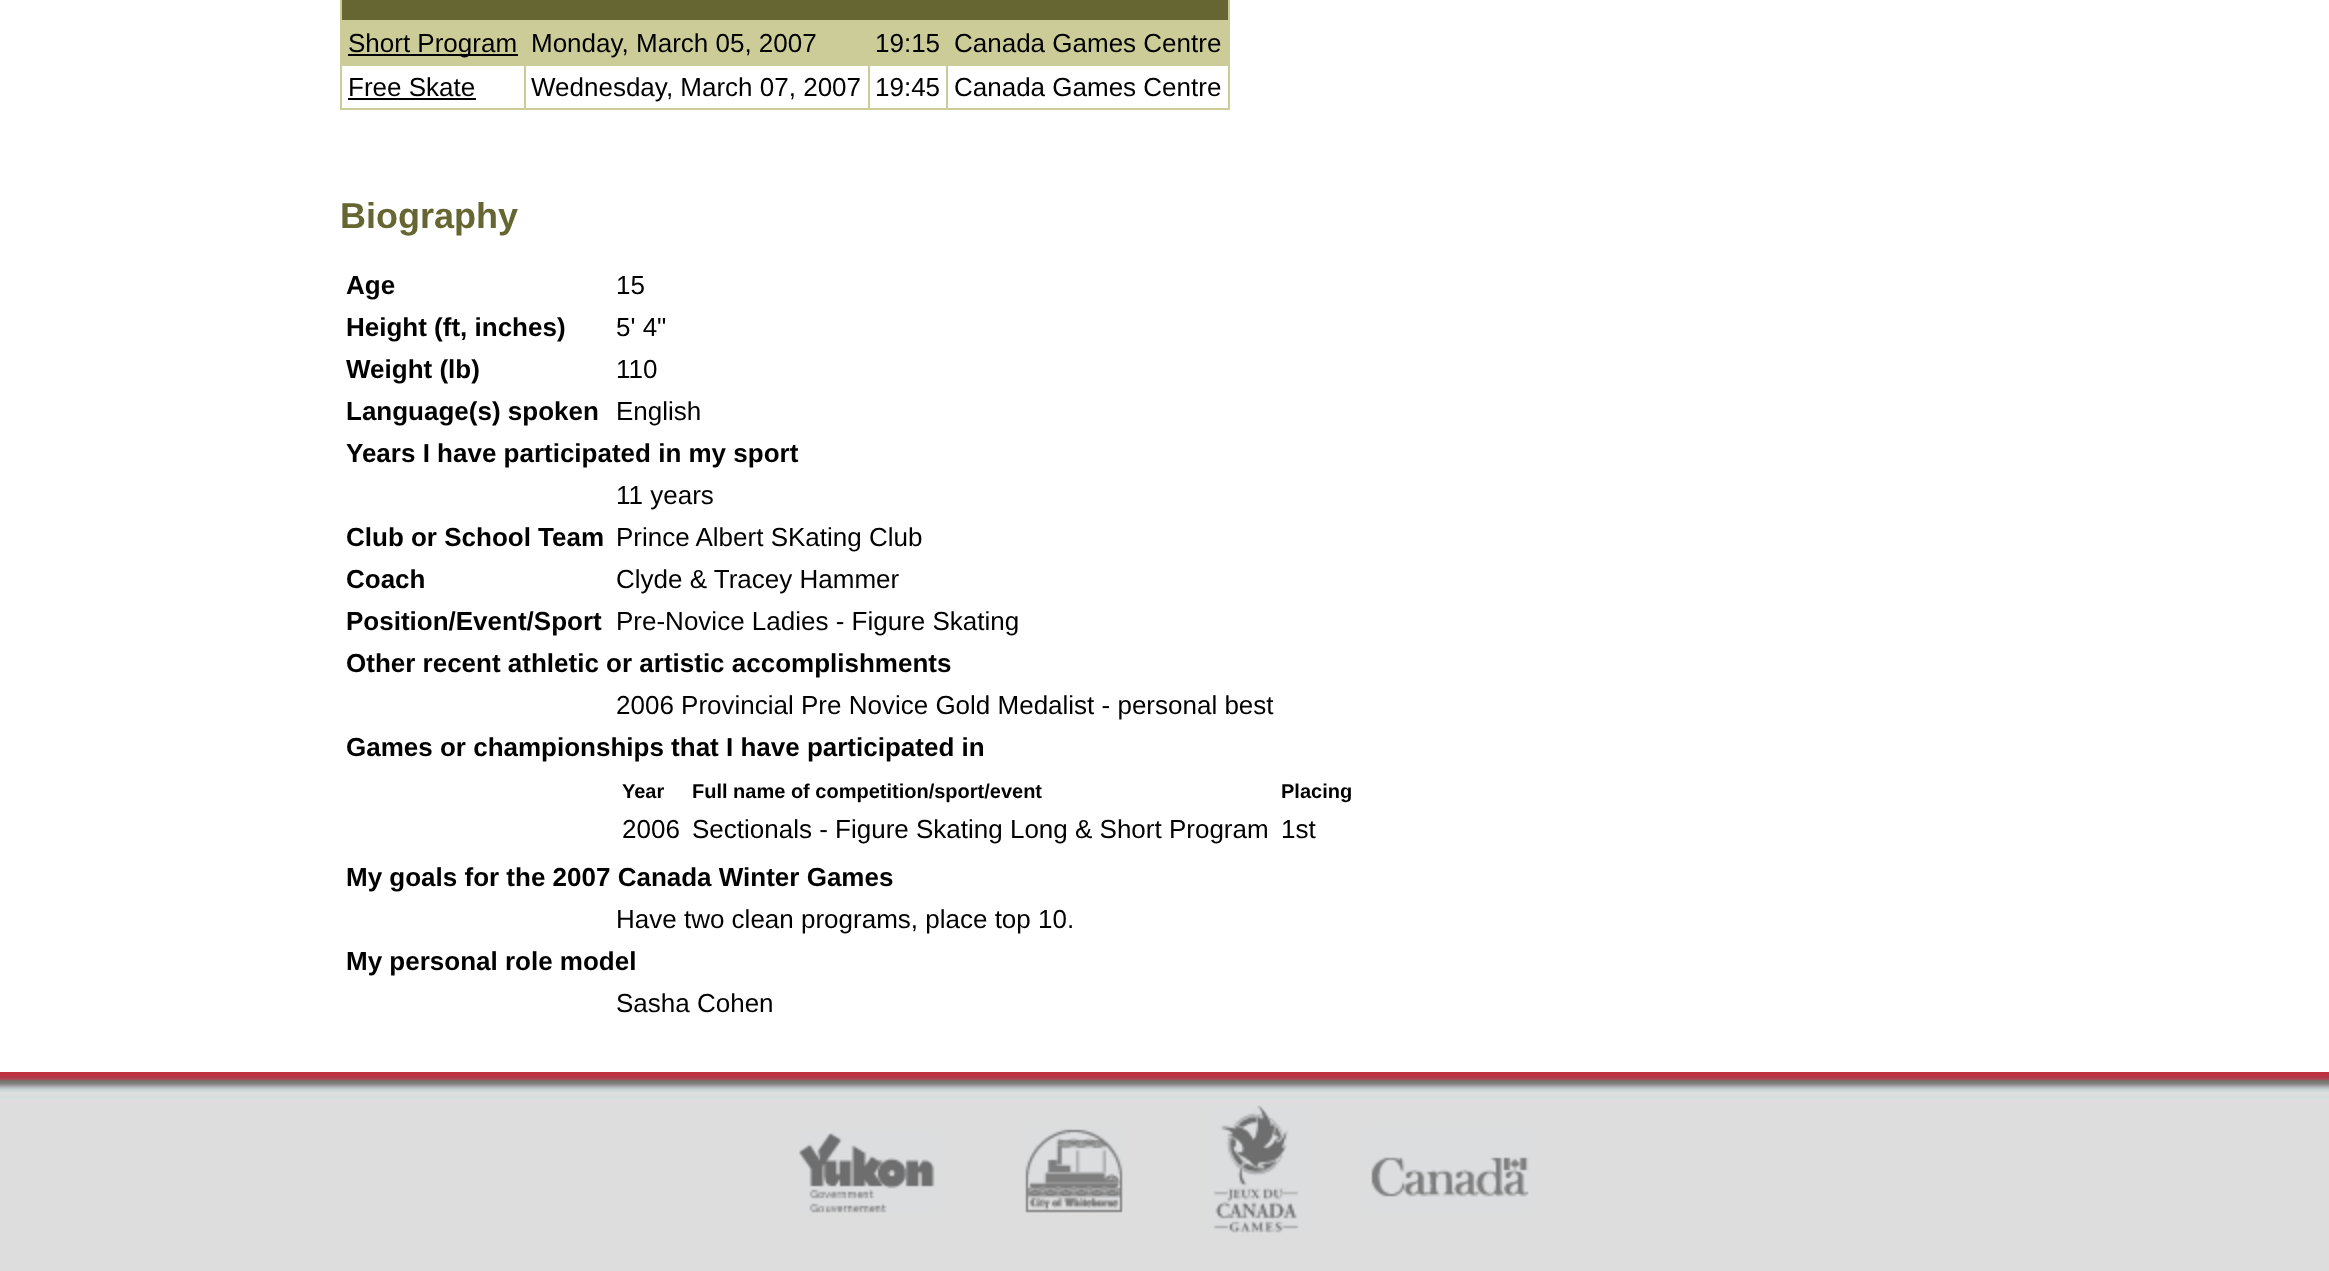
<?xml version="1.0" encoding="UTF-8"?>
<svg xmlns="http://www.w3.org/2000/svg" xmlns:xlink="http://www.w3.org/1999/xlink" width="2329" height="1271">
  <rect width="100%" height="100%" fill="#ffffff" />
  <rect x="342" width="886" height="20" fill="#666633" />
  <rect x="342" y="22" width="886" height="44" fill="#cccc99" />
  <rect x="340" y="20" width="890" height="2" fill="#cccc99" />
  <rect x="340" y="64" width="2" height="2" fill="#cccc99" />
  <rect x="1228" y="64" width="2" height="46" fill="#cccc99" />
  <rect x="946" y="108" width="284" height="2" fill="#cccc99" />
  <rect x="946" y="64" width="2" height="46" fill="#cccc99" />
  <rect x="868" y="108" width="80" height="2" fill="#cccc99" />
  <rect x="868" y="64" width="2" height="46" fill="#cccc99" />
  <rect x="524" y="108" width="346" height="2" fill="#cccc99" />
  <rect x="524" y="64" width="2" height="46" fill="#cccc99" />
  <rect x="340" y="108" width="186" height="2" fill="#cccc99" />
  <rect x="340" y="64" width="2" height="46" fill="#cccc99" />
  <rect x="340" width="2" height="66" fill="#cccc99" />
  <rect x="348" y="54" width="170" height="2" fill="#000000" />
  <rect x="1228" width="2" height="66" fill="#cccc99" />
  <rect x="348" y="98" width="128" height="2" fill="#000000" />
  <image x="0" y="1072" width="2329" height="199" xlink:href="image1.png" />
  <image x="798" y="1105" width="731" height="128" xlink:href="image2.png" />
  <text x="348" y="52" style="font-family: Liberation Sans; font-size: 26px; fill: #000000">Short Program</text>
  <text x="531" y="52" style="font-family: Liberation Sans; font-size: 26px; fill: #000000">Monday, March 05, 2007</text>
  <text x="875" y="52" style="font-family: Liberation Sans; font-size: 26px; fill: #000000">19:15</text>
  <text x="954" y="52" style="font-family: Liberation Sans; font-size: 26px; fill: #000000">Canada Games Centre</text>
  <text x="348" y="96" style="font-family: Liberation Sans; font-size: 26px; fill: #000000">Free Skate</text>
  <text x="531" y="96" style="font-family: Liberation Sans; font-size: 26px; fill: #000000">Wednesday, March 07, 2007</text>
  <text x="875" y="96" style="font-family: Liberation Sans; font-size: 26px; fill: #000000">19:45</text>
  <text x="954" y="96" style="font-family: Liberation Sans; font-size: 26px; fill: #000000">Canada Games Centre</text>
  <text x="340" y="228" style="font-family: Liberation Sans; font-size: 36px; font-weight: bold; fill: #666633">Biography</text>
  <text x="346" y="294" style="font-family: Liberation Sans; font-size: 26px; font-weight: bold; fill: #000000">Age</text>
  <text x="616" y="294" style="font-family: Liberation Sans; font-size: 26px; fill: #000000">15</text>
  <text x="346" y="336" style="font-family: Liberation Sans; font-size: 26px; font-weight: bold; fill: #000000">Height (ft, inches)</text>
  <text x="616" y="336" style="font-family: Liberation Sans; font-size: 26px; fill: #000000">5' 4"</text>
  <text x="346" y="378" style="font-family: Liberation Sans; font-size: 26px; font-weight: bold; fill: #000000">Weight (lb)</text>
  <text x="616" y="378" style="font-family: Liberation Sans; font-size: 26px; fill: #000000">110</text>
  <text x="346" y="420" style="font-family: Liberation Sans; font-size: 26px; font-weight: bold; fill: #000000">Language(s) spoken</text>
  <text x="616" y="420" style="font-family: Liberation Sans; font-size: 26px; fill: #000000">English</text>
  <text x="346" y="462" style="font-family: Liberation Sans; font-size: 26px; font-weight: bold; fill: #000000">Years I have participated in my sport</text>
  <text x="616" y="504" style="font-family: Liberation Sans; font-size: 26px; fill: #000000">11 years</text>
  <text x="346" y="546" style="font-family: Liberation Sans; font-size: 26px; font-weight: bold; fill: #000000">Club or School Team</text>
  <text x="616" y="546" style="font-family: Liberation Sans; font-size: 26px; fill: #000000">Prince Albert SKating Club</text>
  <text x="346" y="588" style="font-family: Liberation Sans; font-size: 26px; font-weight: bold; fill: #000000">Coach</text>
  <text x="616" y="588" style="font-family: Liberation Sans; font-size: 26px; fill: #000000">Clyde &amp; Tracey Hammer</text>
  <text x="346" y="630" style="font-family: Liberation Sans; font-size: 26px; font-weight: bold; fill: #000000">Position/Event/Sport</text>
  <text x="616" y="630" style="font-family: Liberation Sans; font-size: 26px; fill: #000000">Pre-Novice Ladies - Figure Skating</text>
  <text x="346" y="672" style="font-family: Liberation Sans; font-size: 26px; font-weight: bold; fill: #000000">Other recent athletic or artistic accomplishments</text>
  <text x="616" y="714" style="font-family: Liberation Sans; font-size: 26px; fill: #000000">2006 Provincial Pre Novice Gold Medalist - personal best</text>
  <text x="346" y="756" style="font-family: Liberation Sans; font-size: 26px; font-weight: bold; fill: #000000">Games or championships that I have participated in</text>
  <text x="622" y="798" style="font-family: Liberation Sans; font-size: 20px; font-weight: bold; fill: #000000">Year</text>
  <text x="692" y="798" style="font-family: Liberation Sans; font-size: 20px; font-weight: bold; fill: #000000">Full name of competition/sport/event</text>
  <text x="1281" y="798" style="font-family: Liberation Sans; font-size: 20px; font-weight: bold; fill: #000000">Placing</text>
  <text x="622" y="838" style="font-family: Liberation Sans; font-size: 26px; fill: #000000">2006</text>
  <text x="692" y="838" style="font-family: Liberation Sans; font-size: 26px; fill: #000000">Sectionals - Figure Skating Long &amp; Short Program</text>
  <text x="1281" y="838" style="font-family: Liberation Sans; font-size: 26px; fill: #000000">1st</text>
  <text x="346" y="886" style="font-family: Liberation Sans; font-size: 26px; font-weight: bold; fill: #000000">My goals for the 2007 Canada Winter Games</text>
  <text x="616" y="928" style="font-family: Liberation Sans; font-size: 26px; fill: #000000">Have two clean programs, place top 10.</text>
  <text x="346" y="970" style="font-family: Liberation Sans; font-size: 26px; font-weight: bold; fill: #000000">My personal role model</text>
  <text x="616" y="1012" style="font-family: Liberation Sans; font-size: 26px; fill: #000000">Sasha Cohen</text>
</svg>
